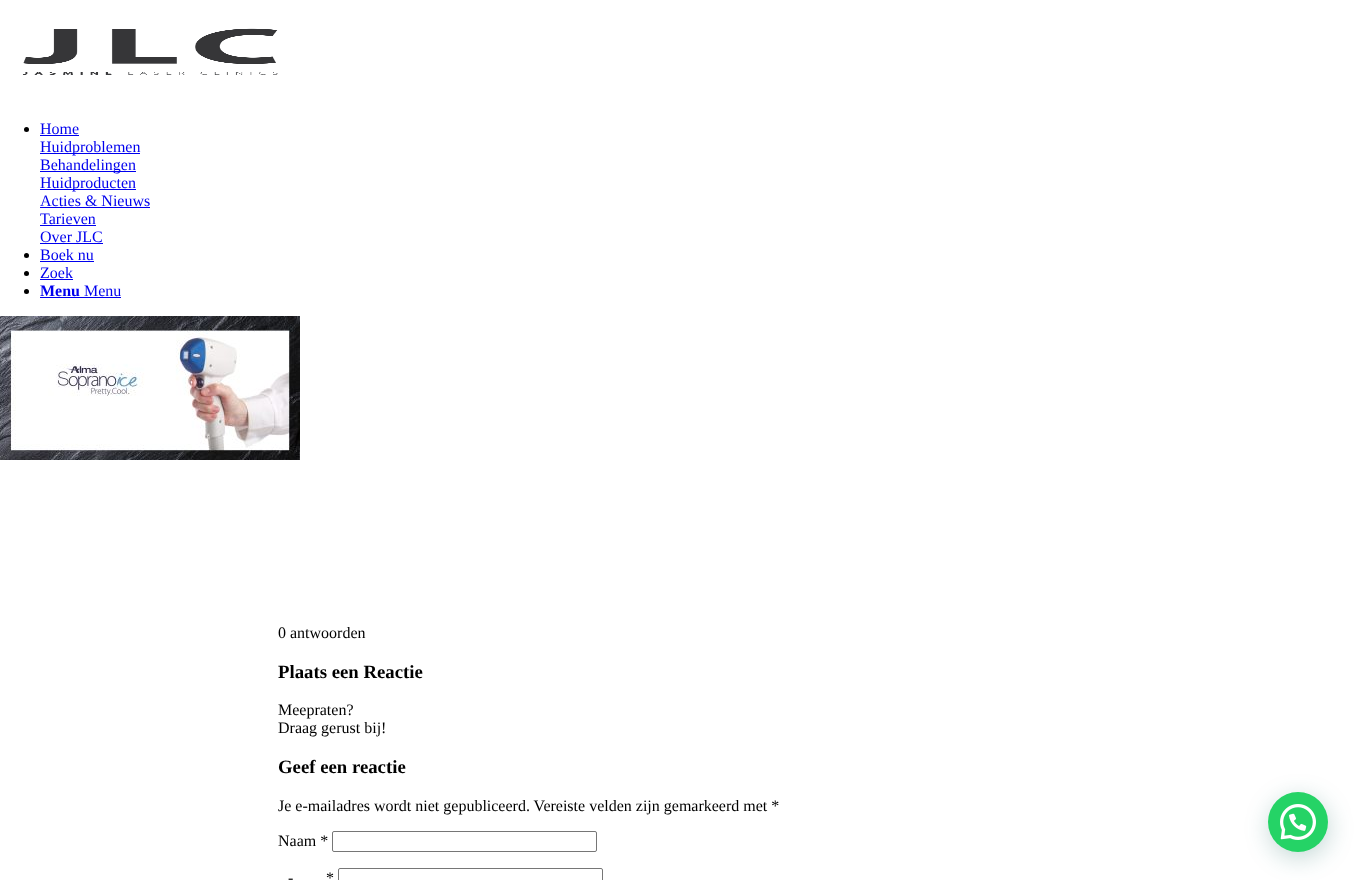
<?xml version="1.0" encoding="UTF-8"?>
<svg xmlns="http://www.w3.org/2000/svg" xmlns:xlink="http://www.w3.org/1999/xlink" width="1356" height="880">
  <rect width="100%" height="100%" fill="#ffffff" />
  <image x="22" y="28" width="256" height="47" xlink:href="image1.png" />
  <circle cx="26.5" cy="129.5" r="2.5" fill="#000000" />
  <rect x="40" y="135" width="39" height="1" fill="#0000ee" />
  <rect x="40" y="153" width="100" height="1" fill="#0000ee" />
  <rect x="40" y="171" width="96" height="1" fill="#0000ee" />
  <rect x="40" y="189" width="96" height="1" fill="#0000ee" />
  <rect x="40" y="207" width="110" height="1" fill="#0000ee" />
  <rect x="40" y="225" width="56" height="1" fill="#0000ee" />
  <rect x="40" y="243" width="63" height="1" fill="#0000ee" />
  <circle cx="26.5" cy="255.5" r="2.5" fill="#000000" />
  <rect x="40" y="261" width="54" height="1" fill="#0000ee" />
  <circle cx="26.5" cy="273.5" r="2.5" fill="#000000" />
  <rect x="40" y="279" width="33" height="1" fill="#0000ee" />
  <circle cx="26.5" cy="291.5" r="2.5" fill="#000000" />
  <rect x="40" y="297" width="81" height="1" fill="#0000ee" />
  <image x="0" y="316" width="300" height="144" xlink:href="image2.png" />
  <rect x="332.5" y="831.5" width="264" height="20" rx="1.5" fill="none" stroke="#767676" />
  <rect x="338.5" y="868.5" width="264" height="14" rx="1.5" fill="none" stroke="#767676" />
  <rect x="1269" y="798" width="60" height="60" rx="30" fill="#075e54" fill-opacity="0.24" filter="blur(12px)" />
  <circle cx="1298" cy="822" r="30" fill="#25d366" />
  <image x="1280" y="804" width="36" height="36" xlink:href="image3.png" />
  <text x="40" y="134" style="font-family: Liberation Serif; font-size: 16px; fill: #0000ee">Home</text>
  <text x="40" y="152" style="font-family: Liberation Serif; font-size: 16px; fill: #0000ee">Huidproblemen</text>
  <text x="40" y="170" style="font-family: Liberation Serif; font-size: 16px; fill: #0000ee">Behandelingen</text>
  <text x="40" y="188" style="font-family: Liberation Serif; font-size: 16px; fill: #0000ee">Huidproducten</text>
  <text x="40" y="206" style="font-family: Liberation Serif; font-size: 16px; fill: #0000ee">Acties &amp; Nieuws</text>
  <text x="40" y="224" style="font-family: Liberation Serif; font-size: 16px; fill: #0000ee">Tarieven</text>
  <text x="40" y="242" style="font-family: Liberation Serif; font-size: 16px; fill: #0000ee">Over JLC</text>
  <text x="40" y="260" style="font-family: Liberation Serif; font-size: 16px; fill: #0000ee">Boek nu</text>
  <text x="40" y="278" style="font-family: Liberation Serif; font-size: 16px; fill: #0000ee">Zoek</text>
  <text x="40" y="296" style="font-family: Liberation Serif; font-size: 16px; font-weight: bold; fill: #0000ee">Menu</text>
  <text x="84" y="296" style="font-family: Liberation Serif; font-size: 16px; fill: #0000ee">Menu</text>
  <text x="278" y="638" style="font-family: Liberation Serif; font-size: 16px; fill: #000000">0 antwoorden</text>
  <text x="278" y="678" style="font-family: Liberation Serif; font-size: 18.75px; font-weight: bold; fill: #000000">Plaats een Reactie</text>
  <text x="278" y="715" style="font-family: Liberation Serif; font-size: 16px; fill: #000000">Meepraten?</text>
  <text x="278" y="733" style="font-family: Liberation Serif; font-size: 16px; fill: #000000">Draag gerust bij!</text>
  <text x="278" y="773" style="font-family: Liberation Serif; font-size: 18.75px; font-weight: bold; fill: #000000">Geef een reactie</text>
  <text x="278" y="811" style="font-family: Liberation Serif; font-size: 16px; fill: #000000">Je e-mailadres wordt niet gepubliceerd. Vereiste velden zijn gemarkeerd met *</text>
  <text x="278" y="846" style="font-family: Liberation Serif; font-size: 16px; fill: #000000">Naam *</text>
  <text x="288" y="883" style="font-family: Liberation Serif; font-size: 16px; fill: #000000">-</text>
  <text x="326" y="883" style="font-family: Liberation Serif; font-size: 16px; fill: #000000">*</text>
</svg>
